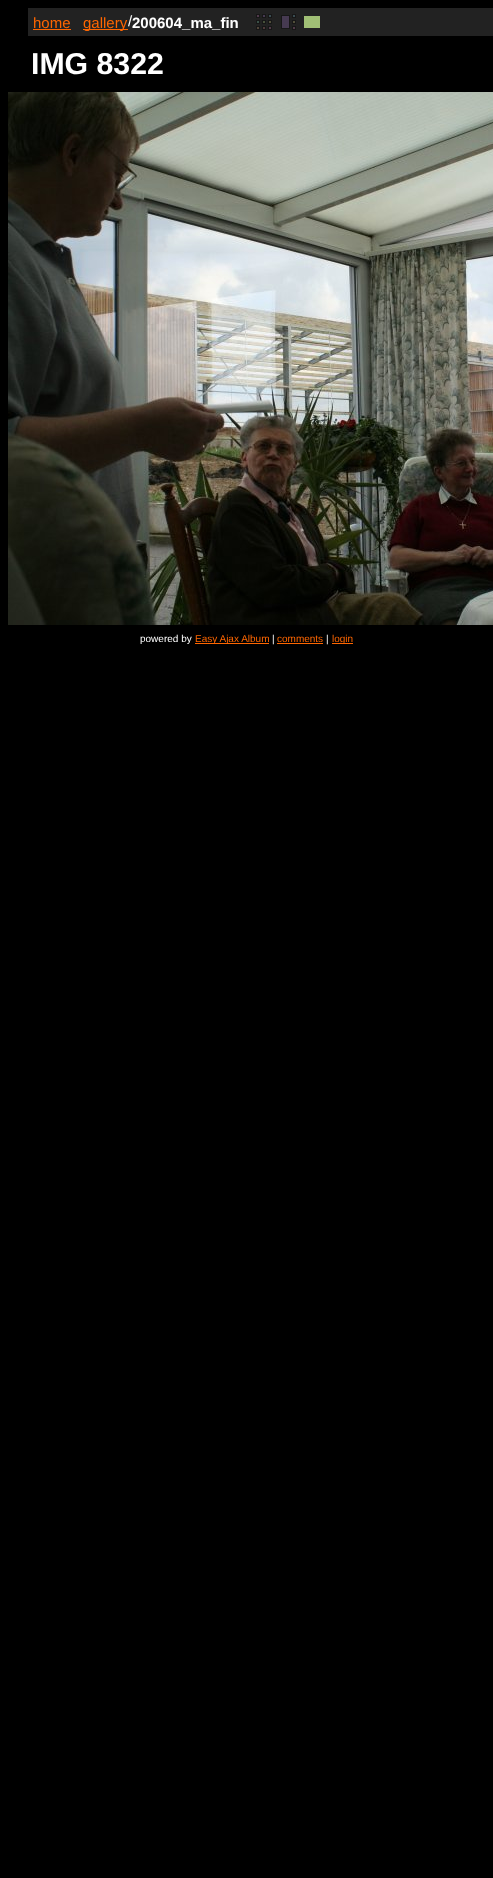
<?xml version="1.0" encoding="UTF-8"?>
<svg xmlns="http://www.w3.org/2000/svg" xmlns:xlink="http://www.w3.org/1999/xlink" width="493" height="1878">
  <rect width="100%" height="100%" fill="#000000" />
  <rect x="28" y="8" width="465" height="28" fill="#222222" />
  <rect x="33" y="29" width="38" height="1" fill="#ff6600" />
  <rect x="83" y="29" width="45" height="1" fill="#ff6600" />
  <image x="256" y="14" width="16" height="16" xlink:href="image1.png" />
  <image x="281" y="14" width="15" height="16" xlink:href="image2.png" />
  <rect x="304" y="16" width="16" height="12" fill="#a0bf75" />
  <image x="8" y="92" width="485" height="533" xlink:href="image3.png" />
  <rect x="195" y="643" width="74" height="1" fill="#ff6600" />
  <rect x="277" y="643" width="46" height="1" fill="#ff6600" />
  <rect x="332" y="643" width="21" height="1" fill="#ff6600" />
  <text x="33" y="28" style="font-family: Liberation Sans; font-size: 15px; fill: #ff6600">home</text>
  <text x="83" y="28" style="font-family: Liberation Sans; font-size: 15px; fill: #ff6600">gallery</text>
  <text x="128" y="26" style="font-family: Liberation Sans; font-size: 15px; fill: #ffffff">/</text>
  <text x="132" y="28" style="font-family: Liberation Sans; font-size: 15px; font-weight: bold; fill: #ffffff">200604_ma_fin</text>
  <text x="31" y="74" style="font-family: Liberation Sans; font-size: 30.25px; font-weight: bold; fill: #ffffff">IMG 8322</text>
  <text x="140" y="642" style="font-family: Liberation Sans; font-size: 10px; fill: #ffffff">powered by</text>
  <text x="195" y="642" style="font-family: Liberation Sans; font-size: 10px; fill: #ff6600">Easy Ajax Album</text>
  <text x="272" y="642" style="font-family: Liberation Sans; font-size: 10px; fill: #ffffff">|</text>
  <text x="277" y="642" style="font-family: Liberation Sans; font-size: 10px; fill: #ff6600">comments</text>
  <text x="326" y="642" style="font-family: Liberation Sans; font-size: 10px; fill: #ffffff">|</text>
  <text x="332" y="642" style="font-family: Liberation Sans; font-size: 10px; fill: #ff6600">login</text>
</svg>
